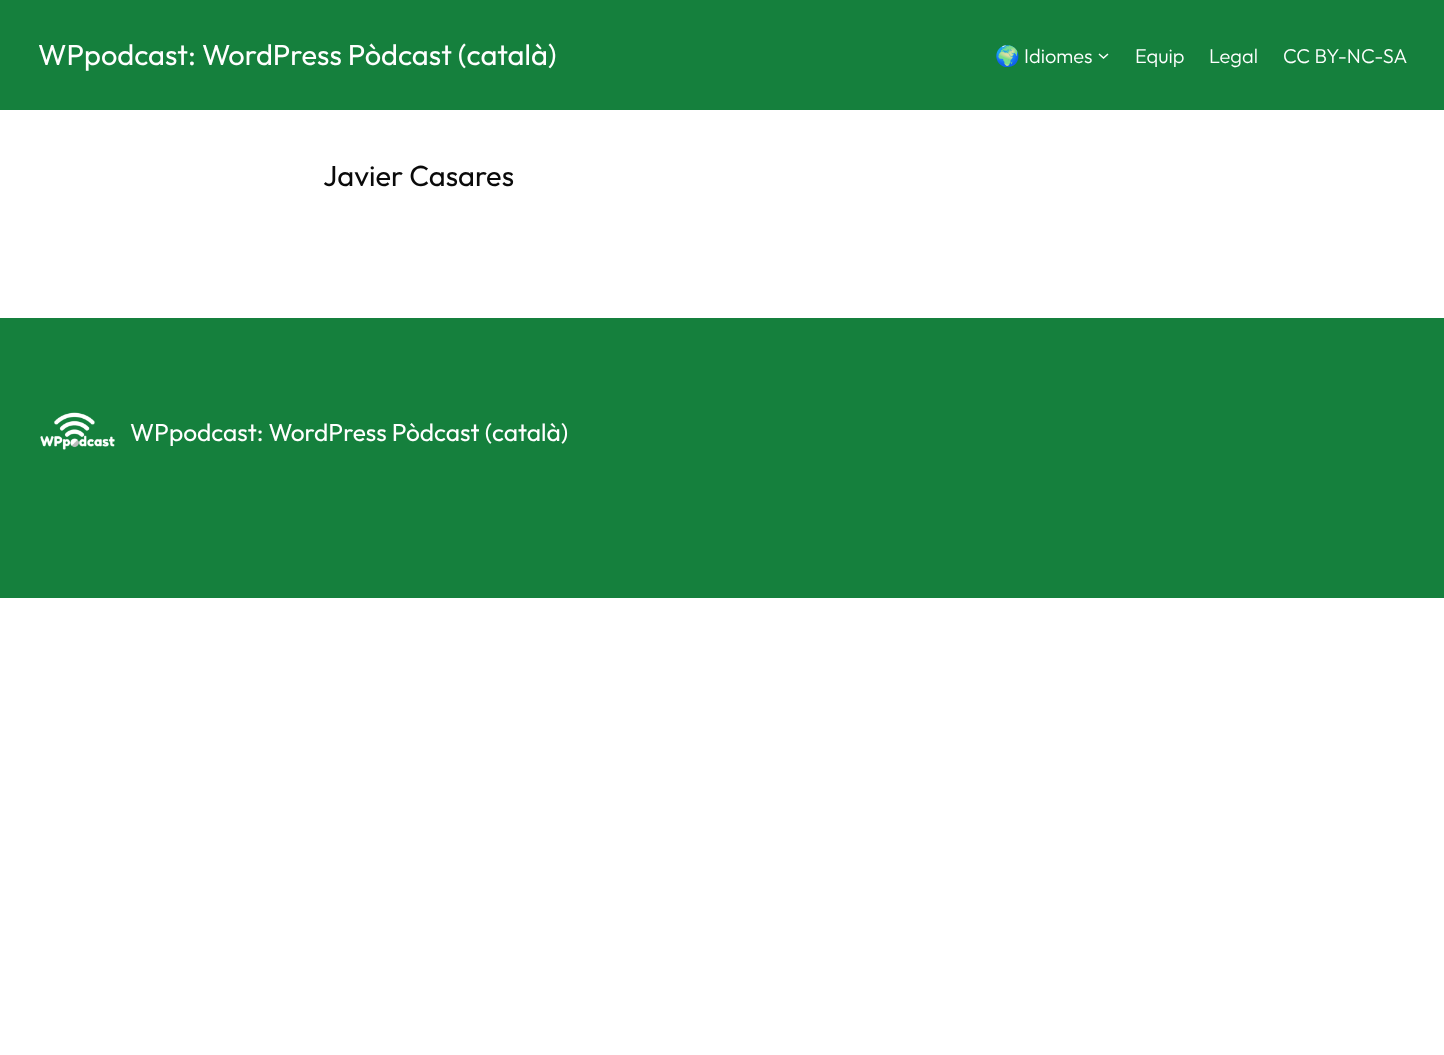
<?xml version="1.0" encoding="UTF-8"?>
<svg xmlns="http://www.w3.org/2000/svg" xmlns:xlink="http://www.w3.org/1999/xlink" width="1444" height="1055">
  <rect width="100%" height="100%" fill="#ffffff" />
  <rect width="1444" height="110" fill="#15803d" />
  <path d="M 1099 54 l 4.5 4 l 4.5 -4" fill="none" stroke="#ffffff" stroke-width="1.5" />
  <rect y="318" width="1444" height="280" fill="#15803d" />
  <image x="40" y="412" width="75" height="38" xlink:href="image1.png" />
  <text x="38" y="65" style="font-family: Outfit; font-size: 29px; fill: #ffffff">WPpodcast: WordPress Pòdcast (català)</text>
  <text x="995" y="63" style="font-family: Noto Color Emoji; font-size: 20px; fill: #ffffff">🌍</text>
  <text x="1024" y="63" style="font-family: Outfit; font-size: 20px; font-weight: 300; fill: #ffffff">Idiomes</text>
  <text x="1135" y="63" style="font-family: Outfit; font-size: 20px; font-weight: 300; fill: #ffffff">Equip</text>
  <text x="1209" y="63" style="font-family: Outfit; font-size: 20px; font-weight: 300; fill: #ffffff">Legal</text>
  <text x="1283" y="63" style="font-family: Outfit; font-size: 20px; font-weight: 300; fill: #ffffff">CC BY-NC-SA</text>
  <text x="323" y="186" style="font-family: Outfit; font-size: 29px; fill: #0a0a0a">Javier Casares</text>
  <text x="130" y="441" style="font-family: Outfit; font-size: 24.5px; fill: #ffffff">WPpodcast: WordPress Pòdcast (català)</text>
</svg>
